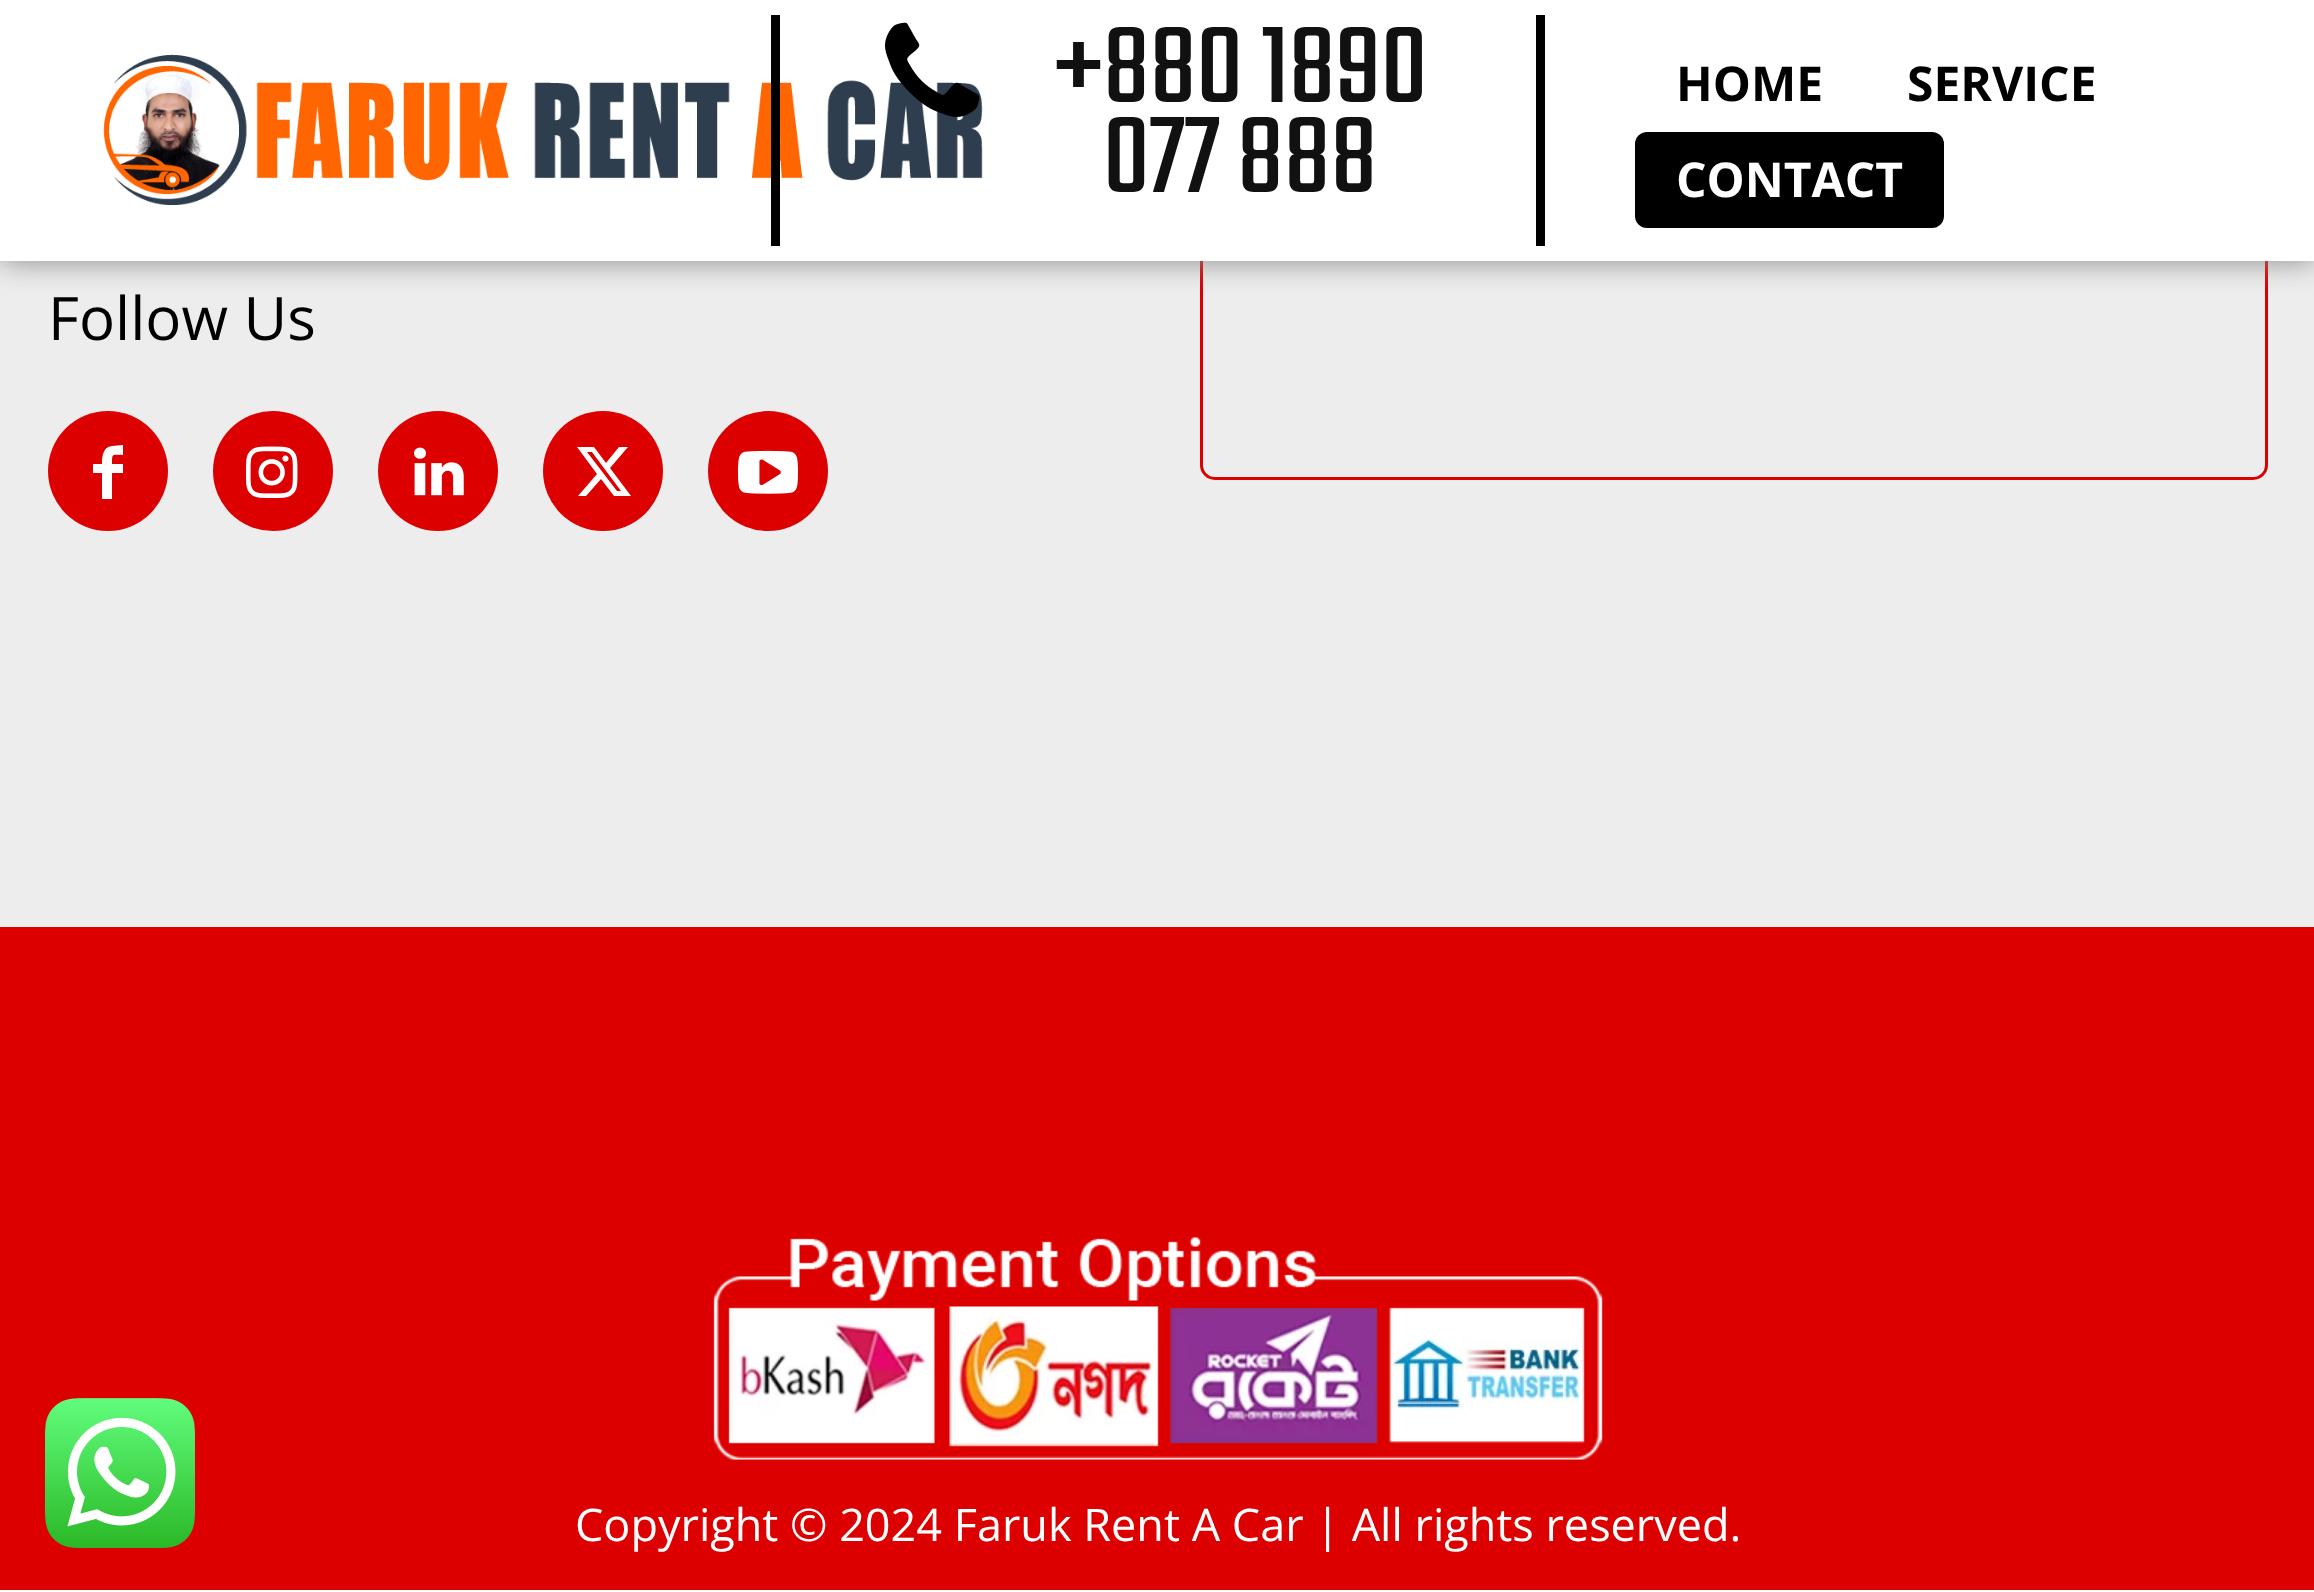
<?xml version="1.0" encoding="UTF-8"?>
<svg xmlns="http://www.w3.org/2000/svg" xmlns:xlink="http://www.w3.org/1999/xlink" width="2314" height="1592">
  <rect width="100%" height="100%" fill="#ffffff" />
  <rect y="261" width="2314" height="666" fill="#ededed" />
  <rect x="1201.5" y="-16.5" width="1065" height="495" rx="13.5" fill="none" stroke="#dd0000" stroke-width="3" />
  <rect width="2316" height="261" fill="#888888" filter="blur(15px)" />
  <rect width="2314" height="261" fill="#ffffff" />
  <image x="103" y="54" width="880" height="151" xlink:href="image1.png" />
  <rect x="1536" y="15" width="9" height="231" fill="#000000" />
  <rect x="771" y="15" width="9" height="231" fill="#000000" />
  <image x="885" y="22" width="95" height="95" xlink:href="image2.png" />
  <rect x="1635" y="132" width="309" height="96" rx="12" fill="#000000" />
  <circle cx="108" cy="471" r="60" fill="#dd0000" />
  <path d="M 123 455 c -11 0 -11 -2 -11 9 h 11 v 9 h -11 v 26 h -10 v -26 h -9 v -9 h 9 c 0 -8 1 -17 10 -18 l 11 -1 z" fill="#ffffff" />
  <circle cx="273" cy="471" r="60" fill="#dd0000" />
  <image x="246" y="446" width="52" height="52" xlink:href="image3.png" />
  <circle cx="438" cy="471" r="60" fill="#dd0000" />
  <image x="414" y="447" width="50" height="49" xlink:href="image4.png" />
  <circle cx="603" cy="471" r="60" fill="#dd0000" />
  <path d="M 619 447 h 9 l -18 21 l 21 28 h -17 l -13 -17 l -15 17 h -8 l 19 -22 l -20 -27 h 17 l 12 16 z m -2 44 h 4 l -29 -39 h -5 z" fill="#ffffff" />
  <circle cx="768" cy="471" r="60" fill="#dd0000" />
  <image x="737" y="450" width="61" height="44" xlink:href="image5.png" />
  <rect y="927" width="2314" height="663" fill="#dd0000" />
  <image x="713" y="1237" width="890" height="223" xlink:href="image6.png" />
  <image x="45" y="1398" width="150" height="150" xlink:href="image7.png" />
  <text x="1054" y="102" style="font-family: Teko; font-size: 120px; font-weight: 300; fill: #111111">+880 1890</text>
  <text x="1103" y="192" style="font-family: Teko; font-size: 120px; font-weight: 300; fill: #111111">077 888</text>
  <text x="1676" y="101" style="font-family: Open Sans; font-size: 48px; font-weight: bold; fill: #000000">HOME</text>
  <text x="1907" y="101" style="font-family: Open Sans; font-size: 48px; font-weight: bold; fill: #000000">SERVICE</text>
  <text x="1676" y="197" style="font-family: Open Sans; font-size: 48px; font-weight: bold; fill: #ffffff">CONTACT</text>
  <text x="48" y="340" style="font-family: Open Sans; font-size: 60px; fill: #000000">Follow Us</text>
  <text x="575" y="1541" style="font-family: Open Sans; font-size: 45px; fill: #ffffff">Copyright © 2024 Faruk Rent A Car | All rights reserved.</text>
</svg>
